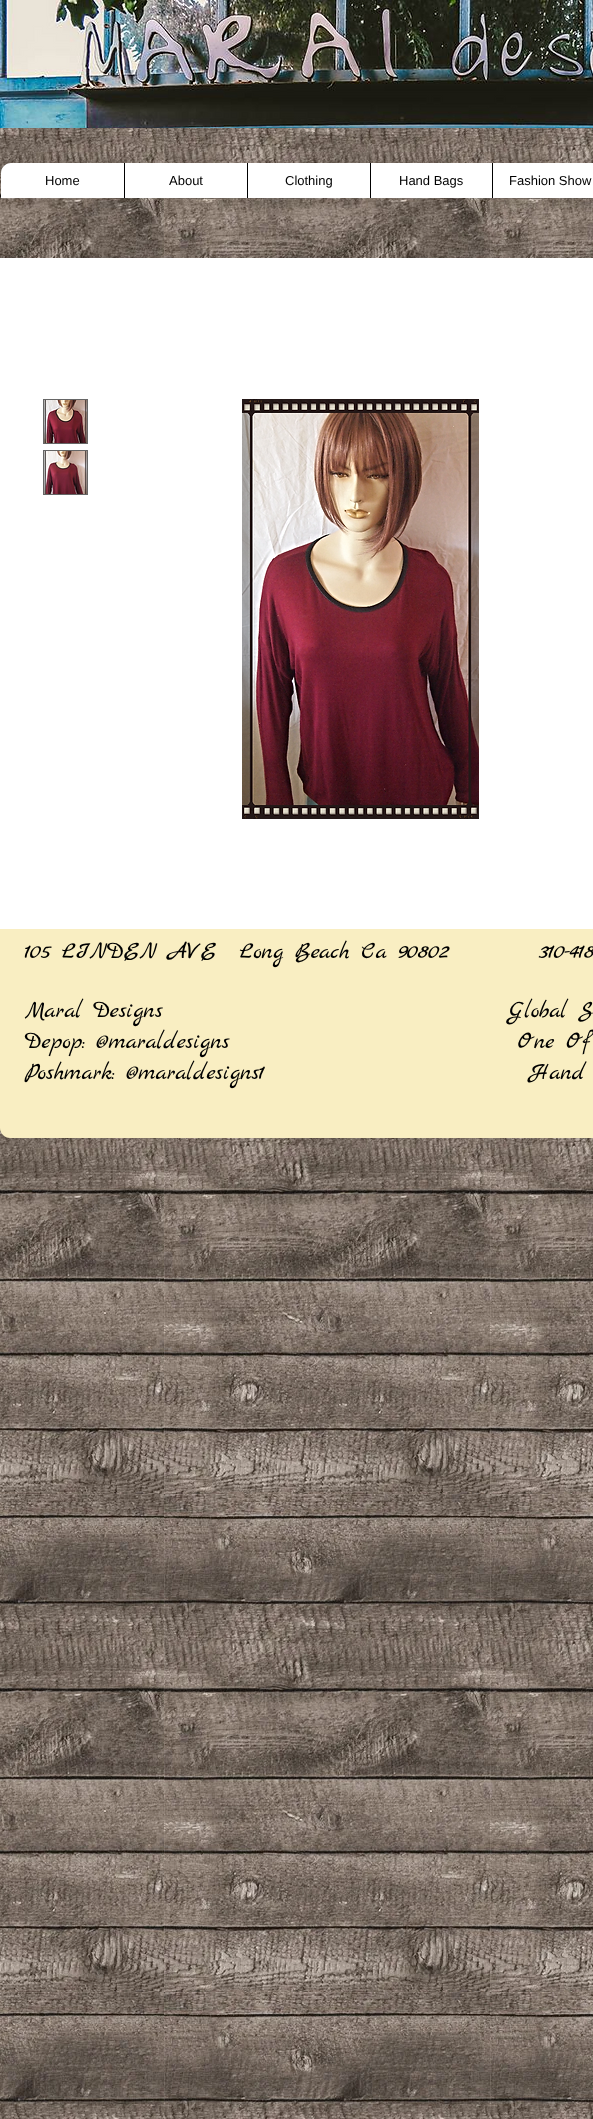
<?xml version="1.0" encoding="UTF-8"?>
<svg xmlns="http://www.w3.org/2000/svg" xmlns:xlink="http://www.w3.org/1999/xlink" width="593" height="2119">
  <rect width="100%" height="100%" fill="#ffffff" />
  <image x="0" y="128" width="593" height="1991" xlink:href="image1.png" />
  <image x="0" y="0" width="593" height="128" xlink:href="image2.png" />
  <path d="M 11 163 h 582 c 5.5 0 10 4.5 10 10 v 25 h -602 v -25 c 0 -5.5 4.5 -10 10 -10 z" fill="#ffffff" />
  <rect x="124" y="163" width="1" height="35" fill="#000000" />
  <rect x="247" y="163" width="1" height="35" fill="#000000" />
  <rect x="370" y="163" width="1" height="35" fill="#000000" />
  <rect x="492" y="163" width="1" height="35" fill="#000000" />
  <rect y="258" width="593" height="671" fill="#ffffff" />
  <rect x="43" y="399" width="45" height="45" fill="#666666" />
  <image x="44" y="400" width="43" height="43" xlink:href="image3.png" />
  <rect x="43" y="450" width="45" height="45" fill="#666666" />
  <image x="44" y="451" width="43" height="43" xlink:href="image4.png" />
  <image x="242" y="399" width="237" height="420" xlink:href="image5.png" />
  <path d="M 0 929 h 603 v 199 c 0 5.5 -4.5 10 -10 10 h -583 c -5.5 0 -10 -4.5 -10 -10 z" fill="#f9eec2" />
  <text x="45" y="185" style="font-family: Liberation Sans; font-size: 13px; fill: #000000">Home</text>
  <text x="169" y="185" style="font-family: Liberation Sans; font-size: 13px; fill: #000000">About</text>
  <text x="285" y="185" style="font-family: Liberation Sans; font-size: 13px; fill: #000000">Clothing</text>
  <text x="399" y="185" style="font-family: Liberation Sans; font-size: 13px; fill: #000000">Hand Bags</text>
  <text x="509" y="185" style="font-family: Liberation Sans; font-size: 13px; fill: #000000">Fashion Show</text>
  <text x="25" y="958" style="font-family: Marck Script; font-size: 24px; fill: #000000" xml:space="preserve">105 LINDEN AVE  Long Beach Ca 90802</text>
  <text x="539" y="958" style="font-family: Marck Script; font-size: 24px; fill: #000000">310-418</text>
  <text x="25" y="1017" style="font-family: Marck Script; font-size: 24px; fill: #000000" xml:space="preserve">Maral Designs                              Global S</text>
  <text x="25" y="1048" style="font-family: Marck Script; font-size: 24px; fill: #000000" xml:space="preserve">Depop: @maraldesigns                         One Of</text>
  <text x="25" y="1079" style="font-family: Marck Script; font-size: 24px; fill: #000000" xml:space="preserve">Poshmark: @maraldesigns1                       Hand</text>
</svg>
